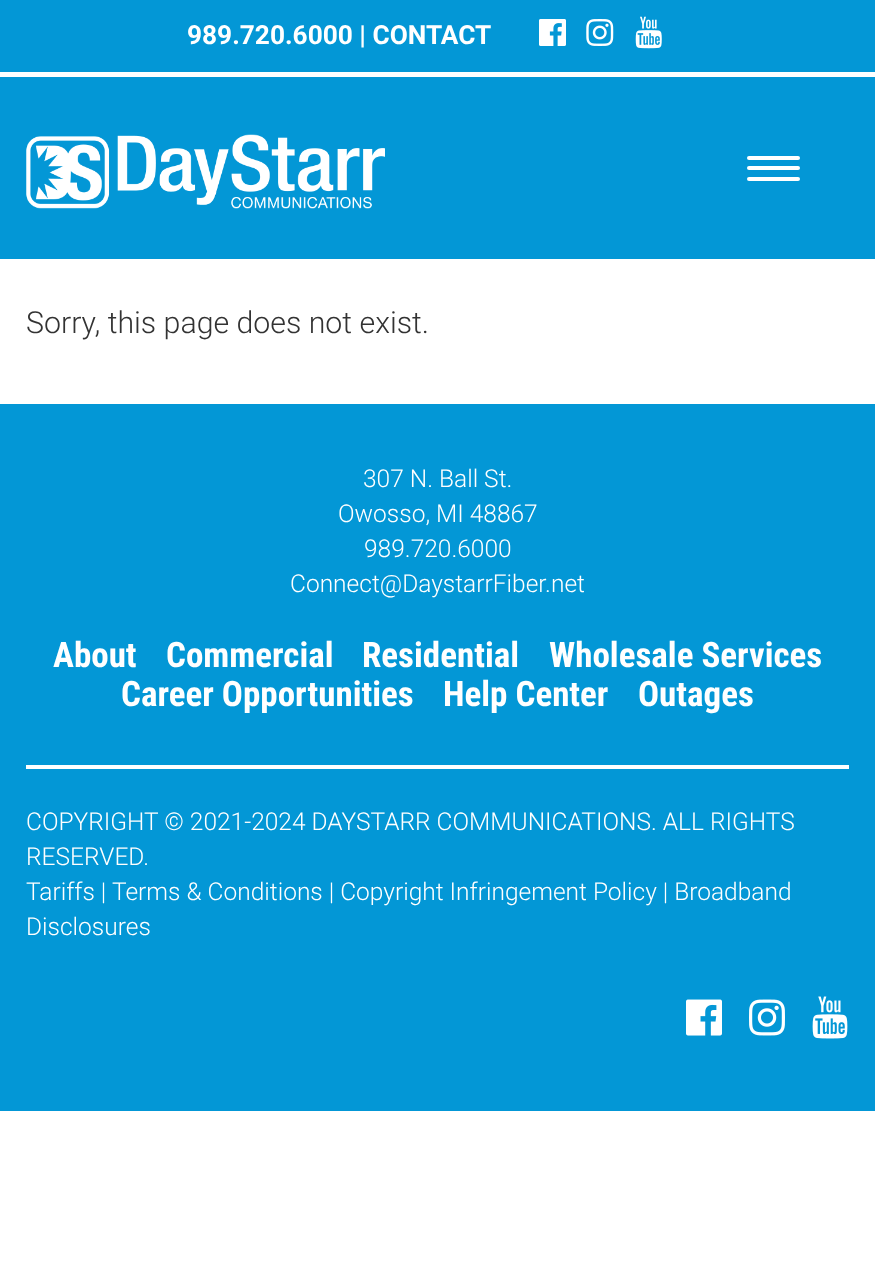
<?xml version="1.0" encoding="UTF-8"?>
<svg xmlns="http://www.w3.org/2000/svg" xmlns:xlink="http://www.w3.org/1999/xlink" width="875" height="1285">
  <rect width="100%" height="100%" fill="#ffffff" />
  <rect width="875" height="72" fill="#0397d6" />
  <image x="539" y="19" width="27" height="27" xlink:href="image1.png" />
  <image x="586" y="19" width="28" height="27" xlink:href="image2.png" />
  <image x="635" y="16" width="27" height="33" xlink:href="image3.png" />
  <rect y="77" width="875" height="182" fill="#0397d6" />
  <image x="26" y="134" width="359" height="75" xlink:href="image4.png" />
  <rect x="747" y="156" width="53" height="4" rx="2" fill="#ffffff" />
  <rect x="747" y="166" width="53" height="4" rx="2" fill="#ffffff" />
  <rect x="747" y="177" width="53" height="4" rx="2" fill="#ffffff" />
  <rect y="404" width="875" height="707" fill="#0397d6" />
  <rect x="26" y="765" width="823" height="4" fill="#ffffff" />
  <image x="686" y="999" width="36" height="37" xlink:href="image5.png" />
  <image x="749" y="999" width="36" height="37" xlink:href="image6.png" />
  <image x="812" y="996" width="36" height="43" xlink:href="image7.png" />
  <text x="187" y="44" style="font-family: Roboto; font-size: 26.25px; font-weight: bold; fill: #ffffff">989.720.6000 | CONTACT</text>
  <text x="26" y="333" style="font-family: Roboto; font-size: 30.3px; font-weight: 300; fill: #333333">Sorry, this page does not exist.</text>
  <text x="363" y="487" style="font-family: Roboto; font-size: 24.5px; font-weight: 300; fill: #ffffff">307 N. Ball St.</text>
  <text x="338" y="522" style="font-family: Roboto; font-size: 24.5px; font-weight: 300; fill: #ffffff">Owosso, MI 48867</text>
  <text x="364" y="557" style="font-family: Roboto; font-size: 24.5px; font-weight: 300; fill: #ffffff">989.720.6000</text>
  <text x="290" y="592" style="font-family: Roboto; font-size: 24.5px; font-weight: 300; fill: #ffffff">Connect@DaystarrFiber.net</text>
  <text x="53" y="667" style="font-family: Roboto Condensed; font-size: 35px; font-weight: bold; fill: #ffffff">About</text>
  <text x="166" y="667" style="font-family: Roboto Condensed; font-size: 35px; font-weight: bold; fill: #ffffff">Commercial</text>
  <text x="362" y="667" style="font-family: Roboto Condensed; font-size: 35px; font-weight: bold; fill: #ffffff">Residential</text>
  <text x="549" y="667" style="font-family: Roboto Condensed; font-size: 35px; font-weight: bold; fill: #ffffff">Wholesale Services</text>
  <text x="121" y="706" style="font-family: Roboto Condensed; font-size: 35px; font-weight: bold; fill: #ffffff">Career Opportunities</text>
  <text x="443" y="706" style="font-family: Roboto Condensed; font-size: 35px; font-weight: bold; fill: #ffffff">Help Center</text>
  <text x="638" y="706" style="font-family: Roboto Condensed; font-size: 35px; font-weight: bold; fill: #ffffff">Outages</text>
  <text x="26" y="830" style="font-family: Roboto; font-size: 24.5px; font-weight: 300; fill: #ffffff">COPYRIGHT © 2021-2024 DAYSTARR COMMUNICATIONS. ALL RIGHTS</text>
  <text x="26" y="865" style="font-family: Roboto; font-size: 24.5px; font-weight: 300; fill: #ffffff">RESERVED.</text>
  <text x="26" y="900" style="font-family: Roboto; font-size: 24.5px; font-weight: 300; fill: #ffffff">Tariffs |</text>
  <text x="112" y="900" style="font-family: Roboto; font-size: 24.5px; font-weight: 300; fill: #ffffff">Terms &amp; Conditions | Copyright Infringement Policy | Broadband</text>
  <text x="26" y="935" style="font-family: Roboto; font-size: 24.5px; font-weight: 300; fill: #ffffff">Disclosures</text>
</svg>
